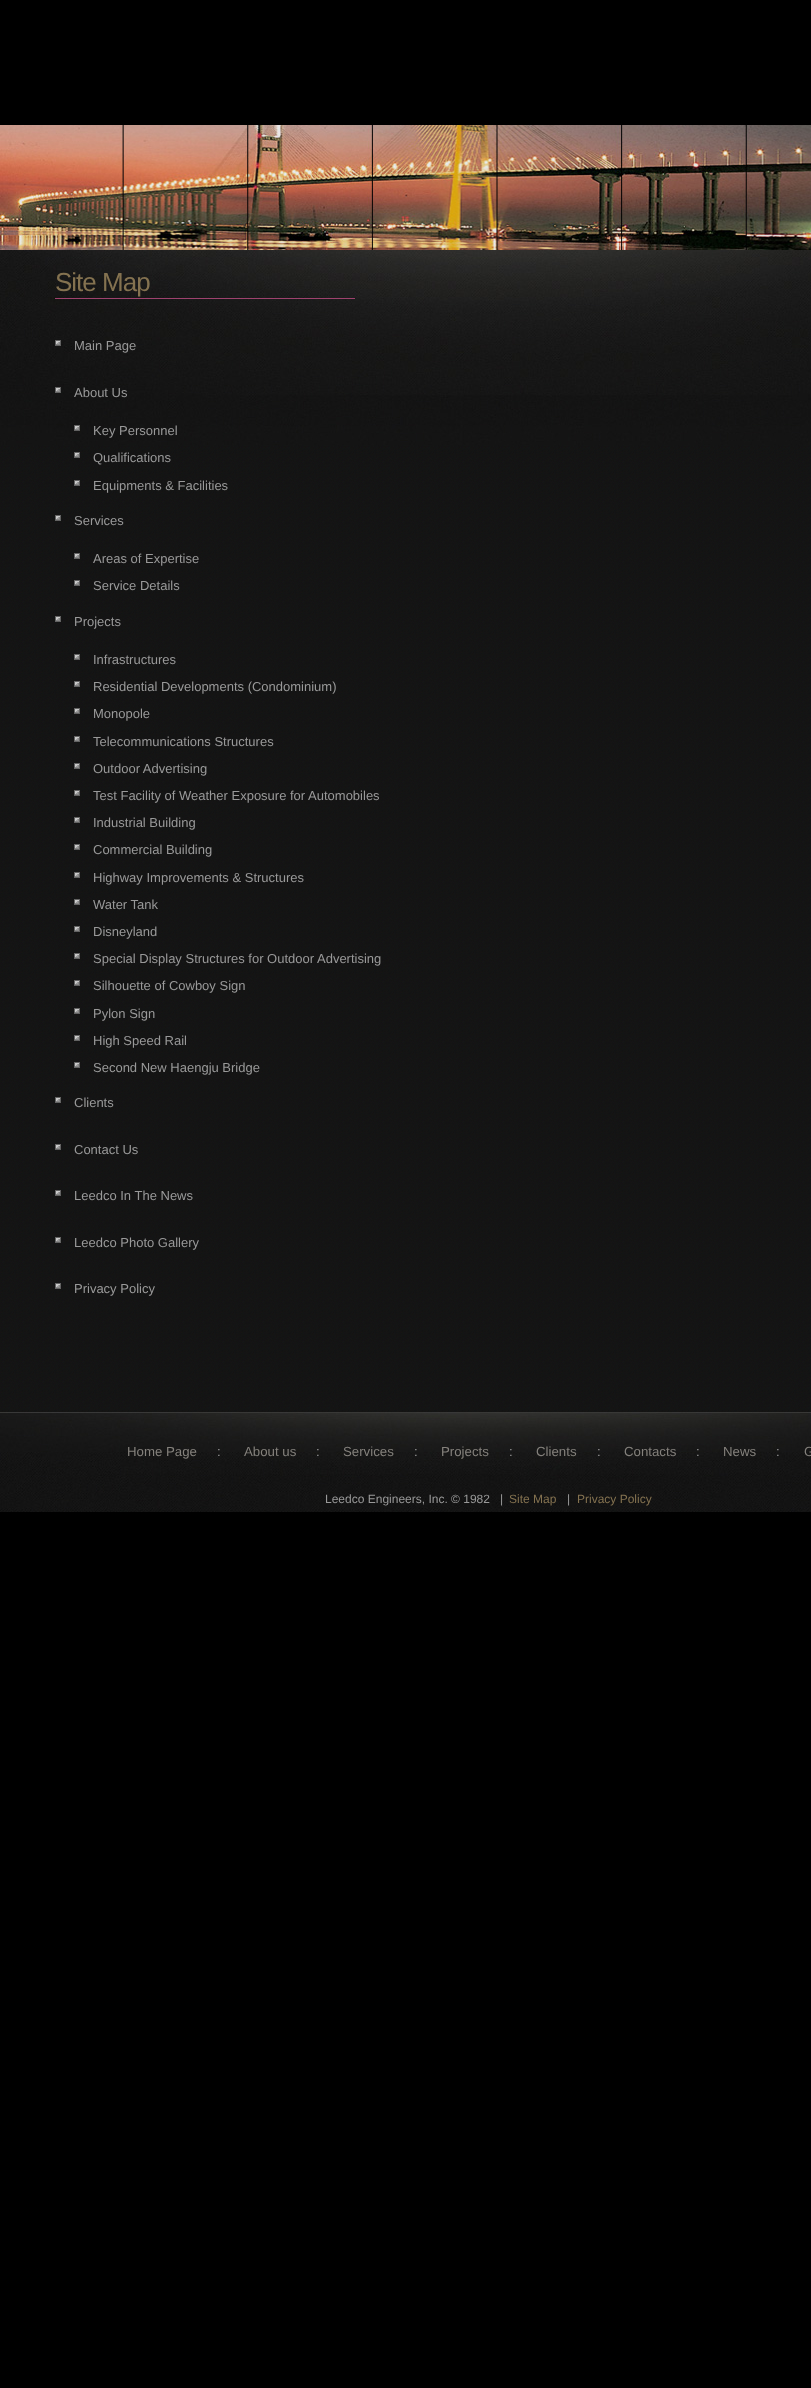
<?xml version="1.0" encoding="UTF-8"?>
<svg xmlns="http://www.w3.org/2000/svg" xmlns:xlink="http://www.w3.org/1999/xlink" width="811" height="2388">
  <rect width="100%" height="100%" fill="#000000" />
  <image x="0" y="125" width="811" height="125" xlink:href="image1.png" />
  <image x="0" y="445" width="811" height="967" xlink:href="image2.png" />
  <image x="0" y="250" width="811" height="195" xlink:href="image3.png" />
  <rect x="55" y="298" width="300" height="1" fill="#9e426e" />
  <image x="55" y="340" width="6" height="6" xlink:href="image4.png" />
  <image x="55" y="387" width="6" height="6" xlink:href="image4.png" />
  <image x="74" y="425" width="6" height="6" xlink:href="image4.png" />
  <image x="74" y="452" width="6" height="6" xlink:href="image4.png" />
  <image x="74" y="480" width="6" height="6" xlink:href="image4.png" />
  <image x="55" y="515" width="6" height="6" xlink:href="image4.png" />
  <image x="74" y="553" width="6" height="6" xlink:href="image4.png" />
  <image x="74" y="580" width="6" height="6" xlink:href="image4.png" />
  <image x="55" y="616" width="6" height="6" xlink:href="image4.png" />
  <image x="74" y="654" width="6" height="6" xlink:href="image4.png" />
  <image x="74" y="681" width="6" height="6" xlink:href="image4.png" />
  <image x="74" y="708" width="6" height="6" xlink:href="image4.png" />
  <image x="74" y="736" width="6" height="6" xlink:href="image4.png" />
  <image x="74" y="763" width="6" height="6" xlink:href="image4.png" />
  <image x="74" y="790" width="6" height="6" xlink:href="image4.png" />
  <image x="74" y="817" width="6" height="6" xlink:href="image4.png" />
  <image x="74" y="844" width="6" height="6" xlink:href="image4.png" />
  <image x="74" y="872" width="6" height="6" xlink:href="image4.png" />
  <image x="74" y="899" width="6" height="6" xlink:href="image4.png" />
  <image x="74" y="926" width="6" height="6" xlink:href="image4.png" />
  <image x="74" y="953" width="6" height="6" xlink:href="image4.png" />
  <image x="74" y="980" width="6" height="6" xlink:href="image4.png" />
  <image x="74" y="1008" width="6" height="6" xlink:href="image4.png" />
  <image x="74" y="1035" width="6" height="6" xlink:href="image4.png" />
  <image x="74" y="1062" width="6" height="6" xlink:href="image4.png" />
  <image x="55" y="1097" width="6" height="6" xlink:href="image4.png" />
  <image x="55" y="1144" width="6" height="6" xlink:href="image4.png" />
  <image x="55" y="1190" width="6" height="6" xlink:href="image4.png" />
  <image x="55" y="1237" width="6" height="6" xlink:href="image4.png" />
  <image x="55" y="1283" width="6" height="6" xlink:href="image4.png" />
  <image x="0" y="1412" width="811" height="100" xlink:href="image5.png" />
  <text x="55" y="291" style="font-family: Liberation Sans; font-size: 26px; letter-spacing: -1px; fill: #847250">Site Map</text>
  <text x="74" y="350" style="font-family: Liberation Sans; font-size: 13px; fill: #999999">Main Page</text>
  <text x="74" y="397" style="font-family: Liberation Sans; font-size: 13px; fill: #999999">About Us</text>
  <text x="93" y="435" style="font-family: Liberation Sans; font-size: 13px; fill: #999999">Key Personnel</text>
  <text x="93" y="462" style="font-family: Liberation Sans; font-size: 13px; fill: #999999">Qualifications</text>
  <text x="93" y="490" style="font-family: Liberation Sans; font-size: 13px; fill: #999999">Equipments &amp; Facilities</text>
  <text x="74" y="525" style="font-family: Liberation Sans; font-size: 13px; fill: #999999">Services</text>
  <text x="93" y="563" style="font-family: Liberation Sans; font-size: 13px; fill: #999999">Areas of Expertise</text>
  <text x="93" y="590" style="font-family: Liberation Sans; font-size: 13px; fill: #999999">Service Details</text>
  <text x="74" y="626" style="font-family: Liberation Sans; font-size: 13px; fill: #999999">Projects</text>
  <text x="93" y="664" style="font-family: Liberation Sans; font-size: 13px; fill: #999999">Infrastructures</text>
  <text x="93" y="691" style="font-family: Liberation Sans; font-size: 13px; fill: #999999">Residential Developments (Condominium)</text>
  <text x="93" y="718" style="font-family: Liberation Sans; font-size: 13px; fill: #999999">Monopole</text>
  <text x="93" y="746" style="font-family: Liberation Sans; font-size: 13px; fill: #999999">Telecommunications Structures</text>
  <text x="93" y="773" style="font-family: Liberation Sans; font-size: 13px; fill: #999999">Outdoor Advertising</text>
  <text x="93" y="800" style="font-family: Liberation Sans; font-size: 13px; fill: #999999">Test Facility of Weather Exposure for Automobiles</text>
  <text x="93" y="827" style="font-family: Liberation Sans; font-size: 13px; fill: #999999">Industrial Building</text>
  <text x="93" y="854" style="font-family: Liberation Sans; font-size: 13px; fill: #999999">Commercial Building</text>
  <text x="93" y="882" style="font-family: Liberation Sans; font-size: 13px; fill: #999999">Highway Improvements &amp; Structures</text>
  <text x="93" y="909" style="font-family: Liberation Sans; font-size: 13px; fill: #999999">Water Tank</text>
  <text x="93" y="936" style="font-family: Liberation Sans; font-size: 13px; fill: #999999">Disneyland</text>
  <text x="93" y="963" style="font-family: Liberation Sans; font-size: 13px; fill: #999999">Special Display Structures for Outdoor Advertising</text>
  <text x="93" y="990" style="font-family: Liberation Sans; font-size: 13px; fill: #999999">Silhouette of Cowboy Sign</text>
  <text x="93" y="1018" style="font-family: Liberation Sans; font-size: 13px; fill: #999999">Pylon Sign</text>
  <text x="93" y="1045" style="font-family: Liberation Sans; font-size: 13px; fill: #999999">High Speed Rail</text>
  <text x="93" y="1072" style="font-family: Liberation Sans; font-size: 13px; fill: #999999">Second New Haengju Bridge</text>
  <text x="74" y="1107" style="font-family: Liberation Sans; font-size: 13px; fill: #999999">Clients</text>
  <text x="74" y="1154" style="font-family: Liberation Sans; font-size: 13px; fill: #999999">Contact Us</text>
  <text x="74" y="1200" style="font-family: Liberation Sans; font-size: 13px; fill: #999999">Leedco In The News</text>
  <text x="74" y="1247" style="font-family: Liberation Sans; font-size: 13px; fill: #999999">Leedco Photo Gallery</text>
  <text x="74" y="1293" style="font-family: Liberation Sans; font-size: 13px; fill: #999999">Privacy Policy</text>
  <text x="127" y="1456" style="font-family: Liberation Sans; font-size: 13.25px; fill: #84817c">Home Page</text>
  <text x="217" y="1456" style="font-family: Liberation Sans; font-size: 13.25px; fill: #999999">:</text>
  <text x="244" y="1456" style="font-family: Liberation Sans; font-size: 13.25px; fill: #84817c">About us</text>
  <text x="316" y="1456" style="font-family: Liberation Sans; font-size: 13.25px; fill: #999999">:</text>
  <text x="343" y="1456" style="font-family: Liberation Sans; font-size: 13.25px; fill: #84817c">Services</text>
  <text x="414" y="1456" style="font-family: Liberation Sans; font-size: 13.25px; fill: #999999">:</text>
  <text x="441" y="1456" style="font-family: Liberation Sans; font-size: 13.25px; fill: #84817c">Projects</text>
  <text x="509" y="1456" style="font-family: Liberation Sans; font-size: 13.25px; fill: #999999">:</text>
  <text x="536" y="1456" style="font-family: Liberation Sans; font-size: 13.25px; fill: #84817c">Clients</text>
  <text x="597" y="1456" style="font-family: Liberation Sans; font-size: 13.25px; fill: #999999">:</text>
  <text x="624" y="1456" style="font-family: Liberation Sans; font-size: 13.25px; fill: #84817c">Contacts</text>
  <text x="696" y="1456" style="font-family: Liberation Sans; font-size: 13.25px; fill: #999999">:</text>
  <text x="723" y="1456" style="font-family: Liberation Sans; font-size: 13.25px; fill: #84817c">News</text>
  <text x="776" y="1456" style="font-family: Liberation Sans; font-size: 13.25px; fill: #999999">:</text>
  <text x="804" y="1456" style="font-family: Liberation Sans; font-size: 13.25px; fill: #84817c">G</text>
  <text x="325" y="1503" style="font-family: Liberation Sans; font-size: 12px; fill: #999999">Leedco Engineers, Inc. © 1982</text>
  <text x="500" y="1503" style="font-family: Liberation Sans; font-size: 12px; fill: #999999">|</text>
  <text x="509" y="1503" style="font-family: Liberation Sans; font-size: 12px; fill: #847250">Site Map</text>
  <text x="567" y="1503" style="font-family: Liberation Sans; font-size: 12px; fill: #999999">|</text>
  <text x="577" y="1503" style="font-family: Liberation Sans; font-size: 12px; fill: #847250">Privacy Policy</text>
</svg>
